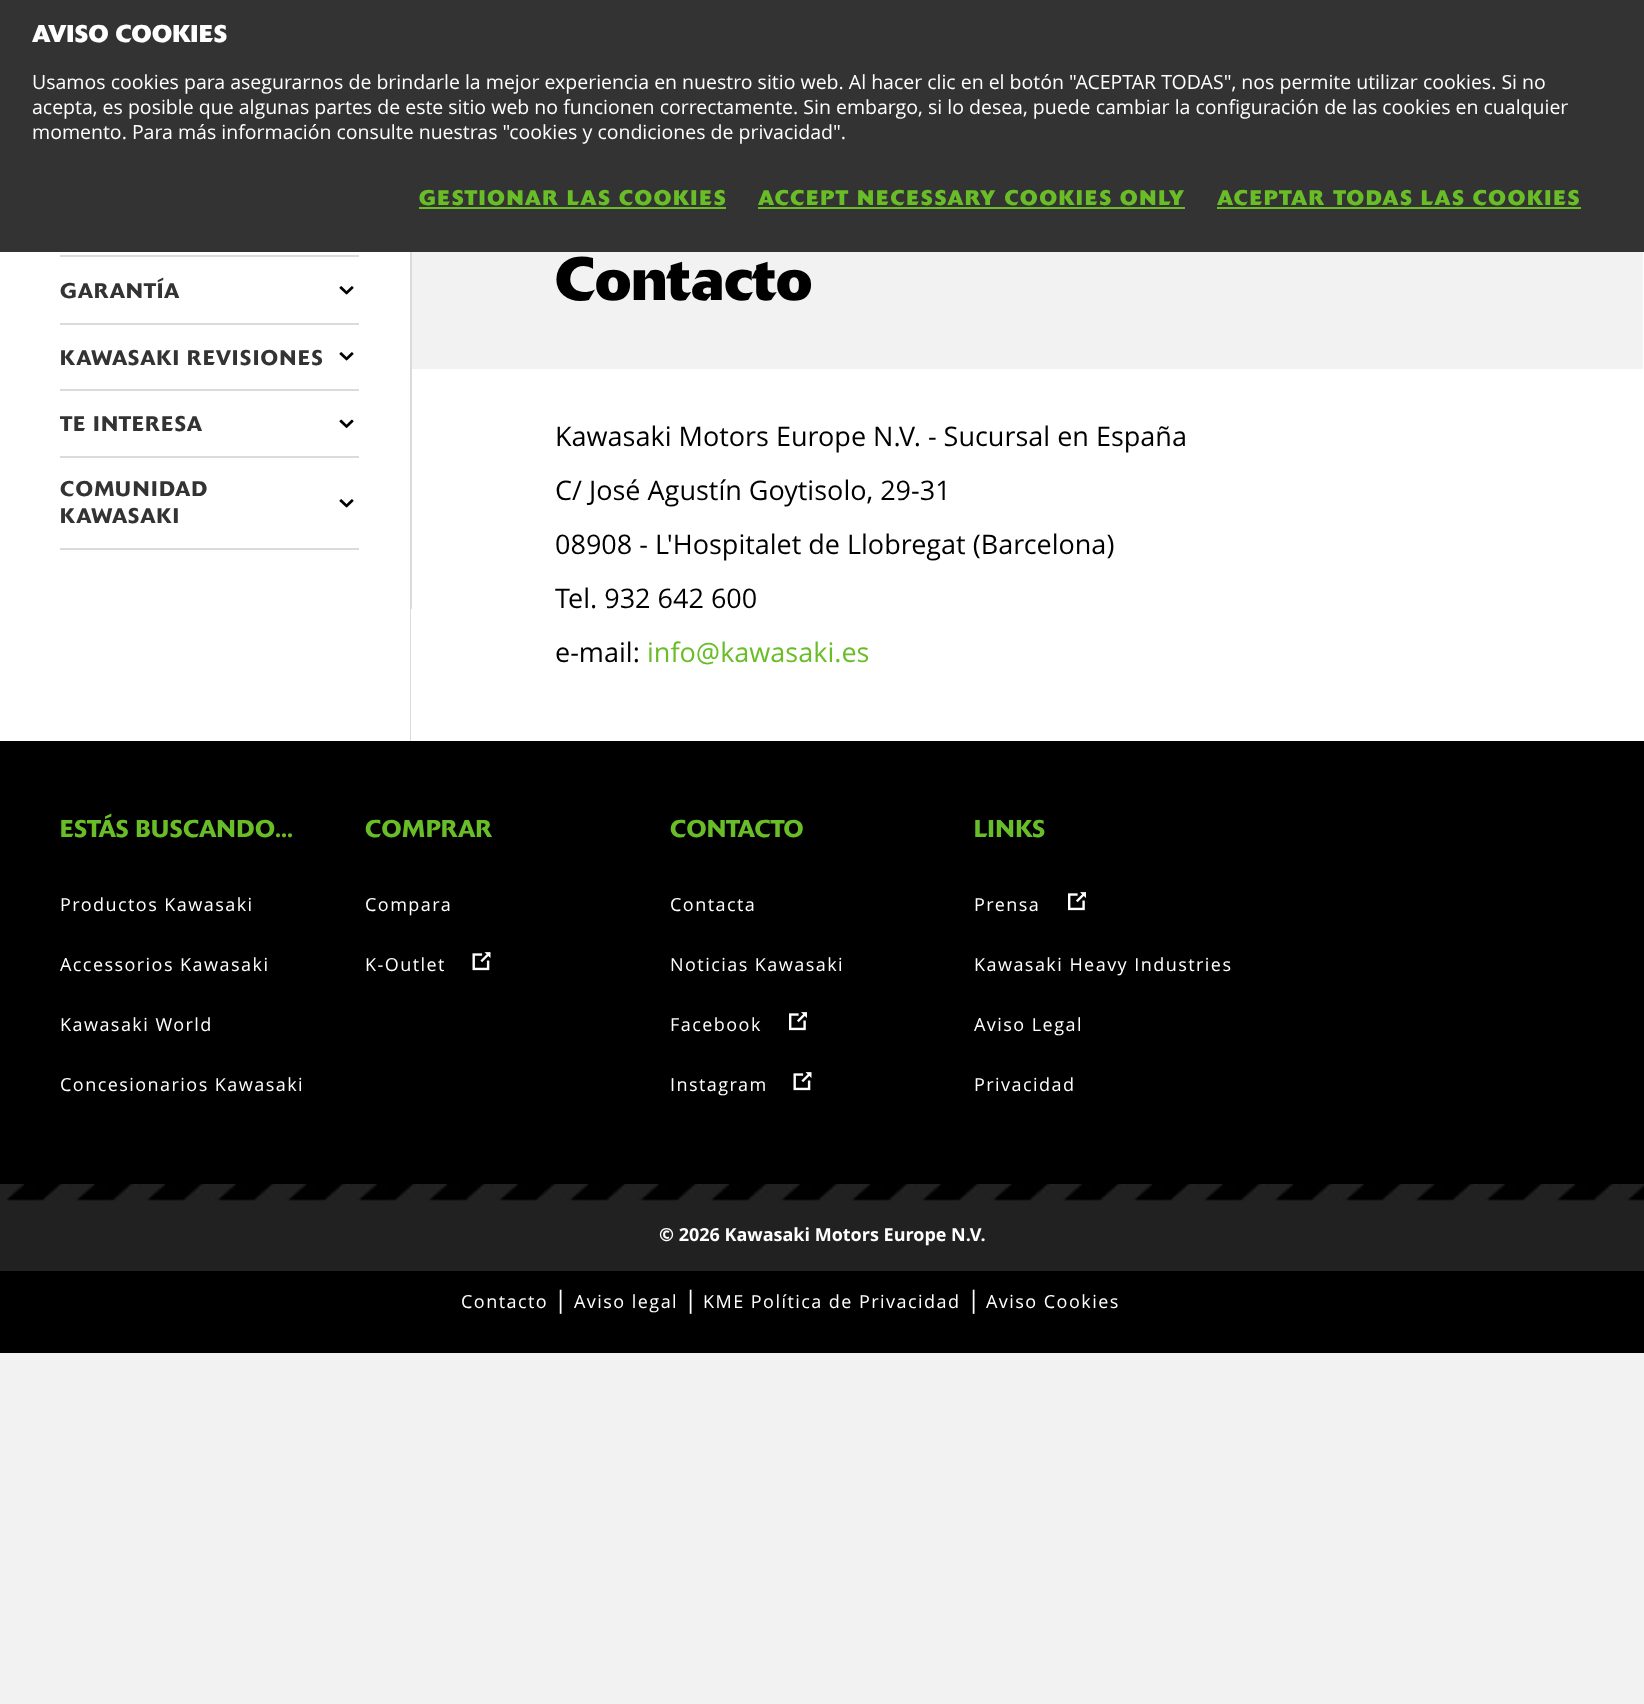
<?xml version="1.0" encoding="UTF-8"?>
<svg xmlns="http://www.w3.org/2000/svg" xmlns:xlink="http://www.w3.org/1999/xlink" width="1644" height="1704">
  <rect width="100%" height="100%" fill="#f2f2f2" />
  <rect width="1644" height="252" fill="#333333" />
  <rect x="419" y="207" width="307" height="2" fill="#69be28" />
  <rect x="758" y="207" width="427" height="2" fill="#69be28" />
  <rect x="1217" y="207" width="364" height="2" fill="#69be28" />
  <rect y="252" width="1644" height="489" fill="#ffffff" />
  <rect x="410" y="252" width="2" height="357" fill="#dbdbdb" />
  <rect x="60" y="255" width="299" height="2" fill="#dbdbdb" />
  <rect x="60" y="323" width="299" height="2" fill="#dbdbdb" />
  <image x="339" y="286" width="15" height="9" xlink:href="image1.png" />
  <rect x="60" y="389" width="299" height="2" fill="#dbdbdb" />
  <image x="339" y="352" width="15" height="9" xlink:href="image1.png" />
  <rect x="60" y="456" width="299" height="2" fill="#dbdbdb" />
  <image x="339" y="419" width="15" height="9" xlink:href="image2.png" />
  <rect x="60" y="548" width="299" height="2" fill="#dbdbdb" />
  <image x="339" y="499" width="15" height="9" xlink:href="image1.png" />
  <rect x="412" y="252" width="1231" height="117" fill="#f2f2f2" />
  <rect x="410" y="609" width="1" height="132" fill="#dbdbdb" />
  <rect y="741" width="1644" height="612" fill="#000000" />
  <image x="472" y="952" width="19" height="19" xlink:href="image3.png" />
  <image x="789" y="1012" width="18" height="19" xlink:href="image4.png" />
  <image x="793" y="1072" width="19" height="19" xlink:href="image3.png" />
  <image x="1068" y="892" width="18" height="19" xlink:href="image4.png" />
  <rect y="1184" width="1644" height="87" fill="#212121" />
  <image x="6" y="1184" width="1638" height="17" xlink:href="image5.png" />
  <text x="32" y="42" style="font-family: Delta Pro; font-size: 24px; font-weight: bold; fill: #ffffff">AVISO COOKIES</text>
  <text x="32" y="89" style="font-family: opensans; font-size: 19.5px; fill: #ffffff">Usamos cookies para asegurarnos de brindarle la mejor experiencia en nuestro sitio web. Al hacer clic en el botón "ACEPTAR TODAS", nos permite utilizar cookies. Si no</text>
  <text x="32" y="114" style="font-family: opensans; font-size: 19.5px; fill: #ffffff">acepta, es posible que algunas partes de este sitio web no funcionen correctamente. Sin embargo, si lo desea, puede cambiar la configuración de las cookies en cualquier</text>
  <text x="32" y="139" style="font-family: opensans; font-size: 19.5px; fill: #ffffff">momento. Para más información consulte nuestras "cookies y condiciones de privacidad".</text>
  <text x="419" y="205" style="font-family: Delta Pro; font-size: 21px; font-weight: bold; letter-spacing: 1.5px; fill: #69be28">GESTIONAR LAS COOKIES</text>
  <text x="758" y="205" style="font-family: Delta Pro; font-size: 21px; font-weight: bold; letter-spacing: 1.5px; fill: #69be28">ACCEPT NECESSARY COOKIES ONLY</text>
  <text x="1217" y="205" style="font-family: Delta Pro; font-size: 21px; font-weight: bold; letter-spacing: 1.5px; fill: #69be28">ACEPTAR TODAS LAS COOKIES</text>
  <text x="60" y="298" style="font-family: Delta Pro; font-size: 21px; font-weight: 500; letter-spacing: 1px; fill: #333333">GARANTÍA</text>
  <text x="60" y="365" style="font-family: Delta Pro; font-size: 21px; font-weight: 500; letter-spacing: 1px; fill: #333333">KAWASAKI REVISIONES</text>
  <text x="60" y="431" style="font-family: Delta Pro; font-size: 21px; font-weight: 500; letter-spacing: 1px; fill: #333333">TE INTERESA</text>
  <text x="60" y="496" style="font-family: Delta Pro; font-size: 21px; font-weight: 500; letter-spacing: 1px; fill: #333333">COMUNIDAD</text>
  <text x="60" y="523" style="font-family: Delta Pro; font-size: 21px; font-weight: 500; letter-spacing: 1px; fill: #333333">KAWASAKI</text>
  <text x="555" y="300" style="font-family: Delta Pro; font-size: 60px; font-weight: bold; fill: #000000">Contacto</text>
  <text x="555" y="446" style="font-family: opensans; font-size: 27px; fill: #000000">Kawasaki Motors Europe N.V. - Sucursal en España</text>
  <text x="555" y="500" style="font-family: opensans; font-size: 27px; fill: #000000">C/ José Agustín Goytisolo, 29-31</text>
  <text x="555" y="554" style="font-family: opensans; font-size: 27px; fill: #000000">08908 - L'Hospitalet de Llobregat (Barcelona)</text>
  <text x="555" y="608" style="font-family: opensans; font-size: 27px; fill: #000000">Tel. 932 642 600</text>
  <text x="555" y="662" style="font-family: opensans; font-size: 27px; fill: #000000">e-mail:</text>
  <text x="647" y="662" style="font-family: opensans; font-size: 27px; fill: #69be28">info@kawasaki.es</text>
  <text x="60" y="837" style="font-family: Delta Pro; font-size: 24px; font-weight: 500; fill: #69be28">ESTÁS BUSCANDO...</text>
  <text x="60" y="911" style="font-family: opensans; font-size: 18px; letter-spacing: 1.45px; fill: #ffffff">Productos Kawasaki</text>
  <text x="60" y="971" style="font-family: opensans; font-size: 18px; letter-spacing: 1.45px; fill: #ffffff">Accessorios Kawasaki</text>
  <text x="60" y="1031" style="font-family: opensans; font-size: 18px; letter-spacing: 1.45px; fill: #ffffff">Kawasaki World</text>
  <text x="60" y="1091" style="font-family: opensans; font-size: 18px; letter-spacing: 1.45px; fill: #ffffff">Concesionarios Kawasaki</text>
  <text x="365" y="837" style="font-family: Delta Pro; font-size: 24px; font-weight: 500; fill: #69be28">COMPRAR</text>
  <text x="365" y="911" style="font-family: opensans; font-size: 18px; letter-spacing: 1.45px; fill: #ffffff">Compara</text>
  <text x="365" y="971" style="font-family: opensans; font-size: 18px; letter-spacing: 1.45px; fill: #ffffff">K-Outlet</text>
  <text x="670" y="837" style="font-family: Delta Pro; font-size: 24px; font-weight: 500; fill: #69be28">CONTACTO</text>
  <text x="670" y="911" style="font-family: opensans; font-size: 18px; letter-spacing: 1.45px; fill: #ffffff">Contacta</text>
  <text x="670" y="971" style="font-family: opensans; font-size: 18px; letter-spacing: 1.45px; fill: #ffffff">Noticias Kawasaki</text>
  <text x="670" y="1031" style="font-family: opensans; font-size: 18px; letter-spacing: 1.45px; fill: #ffffff">Facebook</text>
  <text x="670" y="1091" style="font-family: opensans; font-size: 18px; letter-spacing: 1.45px; fill: #ffffff">Instagram</text>
  <text x="974" y="837" style="font-family: Delta Pro; font-size: 24px; font-weight: 500; fill: #69be28">LINKS</text>
  <text x="974" y="911" style="font-family: opensans; font-size: 18px; letter-spacing: 1.45px; fill: #ffffff">Prensa</text>
  <text x="974" y="971" style="font-family: opensans; font-size: 18px; letter-spacing: 1.45px; fill: #ffffff">Kawasaki Heavy Industries</text>
  <text x="974" y="1031" style="font-family: opensans; font-size: 18px; letter-spacing: 1.45px; fill: #ffffff">Aviso Legal</text>
  <text x="974" y="1091" style="font-family: opensans; font-size: 18px; letter-spacing: 1.45px; fill: #ffffff">Privacidad</text>
  <text x="659" y="1241" style="font-family: opensans; font-size: 18px; font-weight: bold; fill: #ffffff">© 2026 Kawasaki Motors Europe N.V.</text>
  <text x="461" y="1308" style="font-family: opensans; font-size: 18px; letter-spacing: 1.45px; fill: #ffffff">Contacto</text>
  <text x="554" y="1308" style="font-family: opensans; font-size: 24px; fill: #ffffff">|</text>
  <text x="574" y="1308" style="font-family: opensans; font-size: 18px; letter-spacing: 1.45px; fill: #ffffff">Aviso legal</text>
  <text x="684" y="1308" style="font-family: opensans; font-size: 24px; fill: #ffffff">|</text>
  <text x="703" y="1308" style="font-family: opensans; font-size: 18px; letter-spacing: 1.45px; fill: #ffffff">KME Política de Privacidad</text>
  <text x="967" y="1308" style="font-family: opensans; font-size: 24px; fill: #ffffff">|</text>
  <text x="986" y="1308" style="font-family: opensans; font-size: 18px; letter-spacing: 1.45px; fill: #ffffff">Aviso Cookies</text>
</svg>
